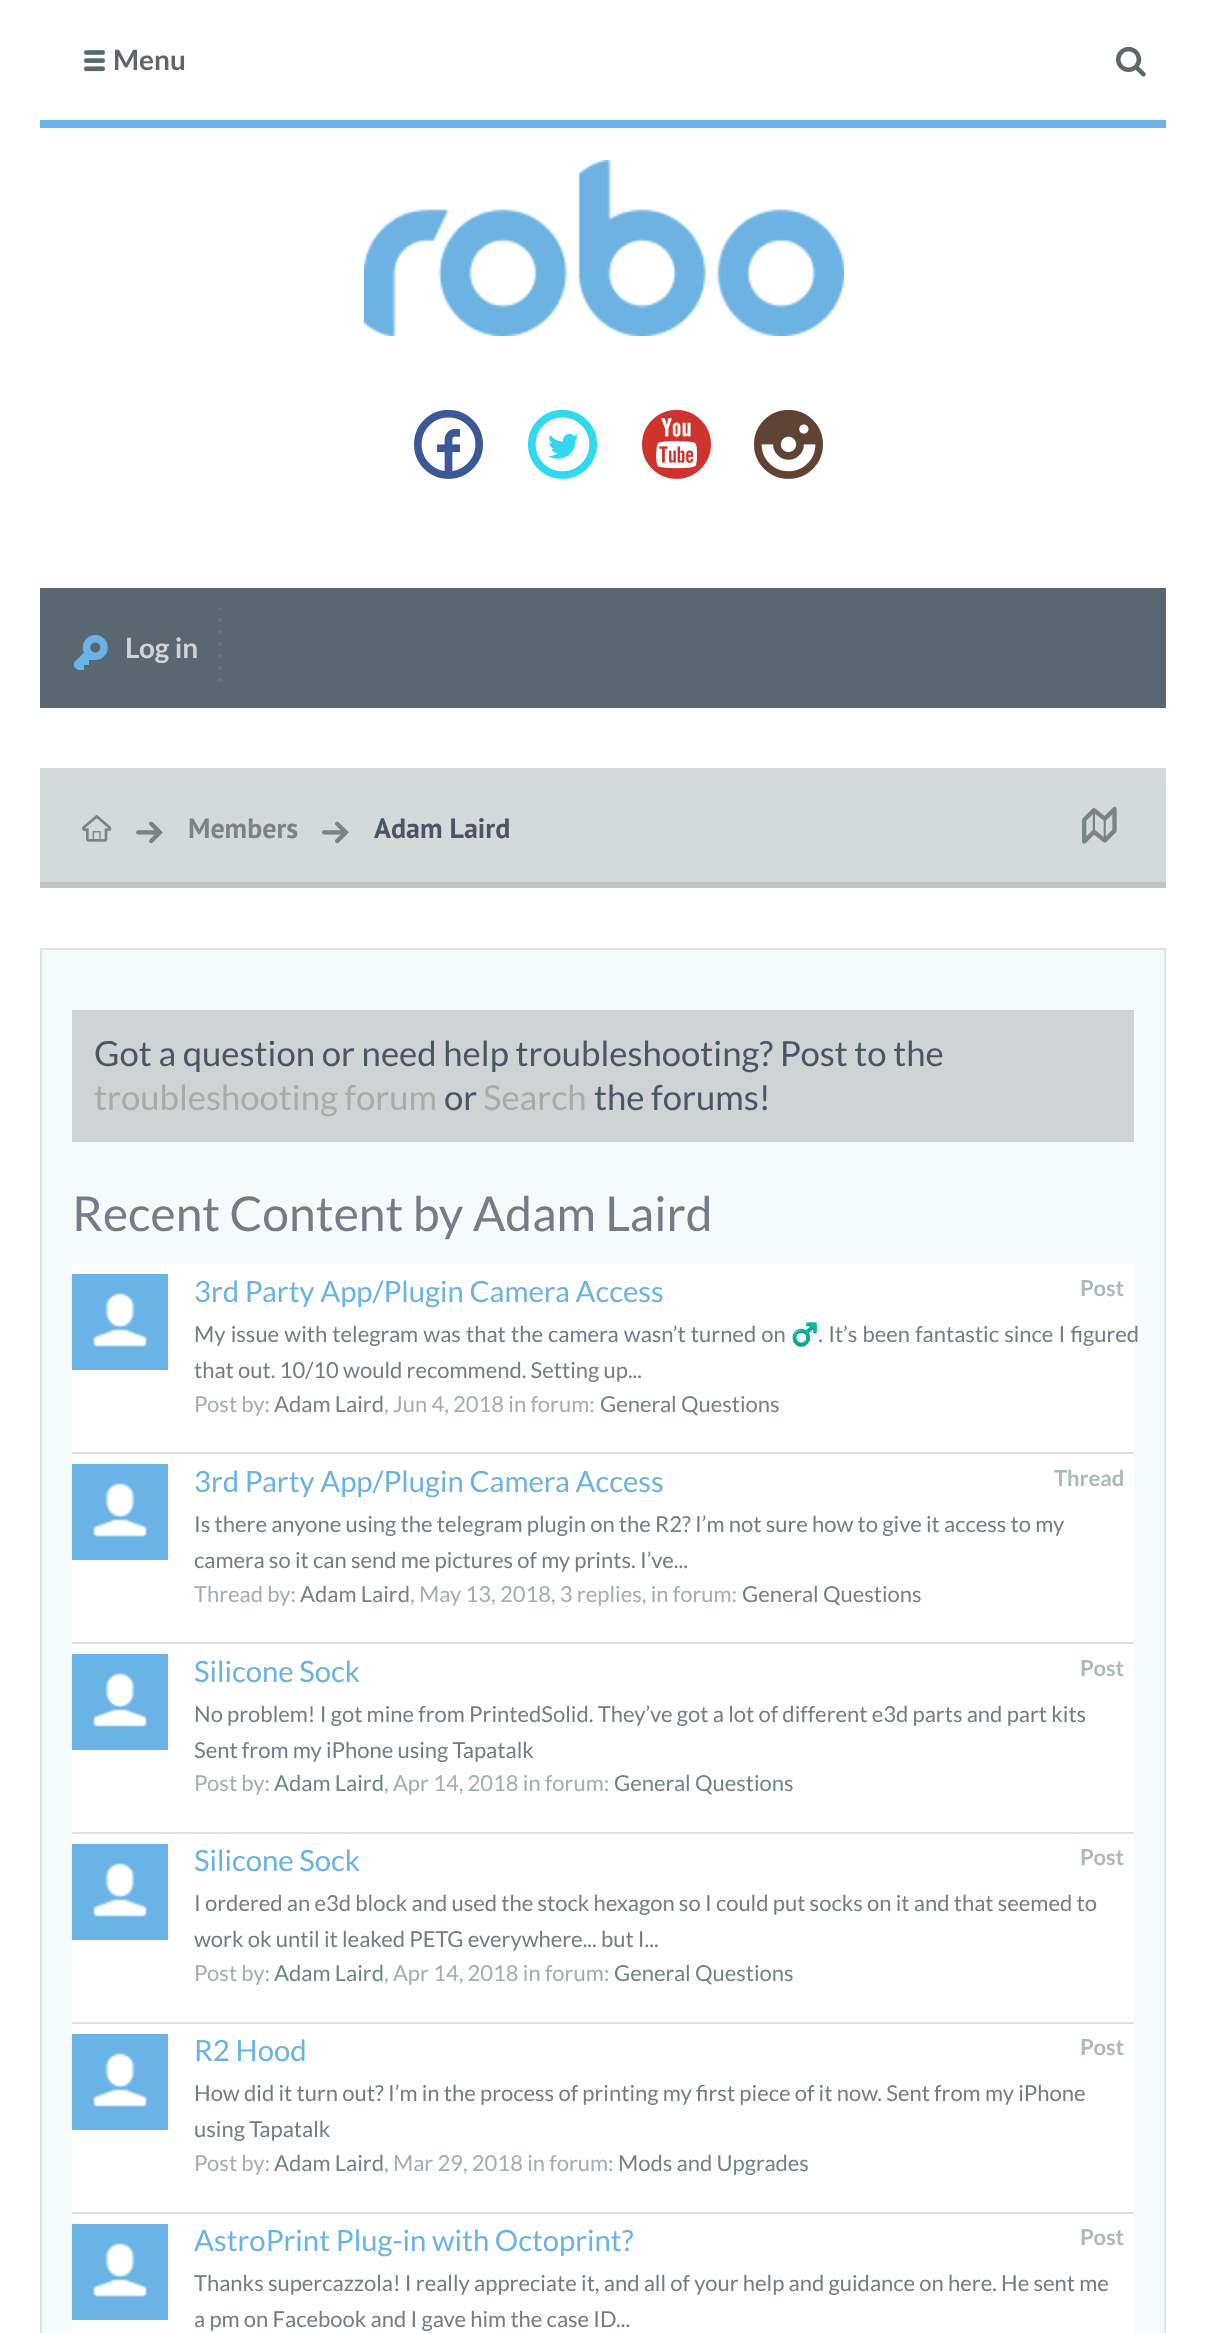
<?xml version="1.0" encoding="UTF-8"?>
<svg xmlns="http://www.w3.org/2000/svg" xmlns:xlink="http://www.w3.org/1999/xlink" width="1206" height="2333">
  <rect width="100%" height="100%" fill="#ffffff" />
  <rect x="40" y="120" width="1126" height="8" fill="#69b3e7" />
  <image x="84" y="50" width="21" height="22" xlink:href="image1.png" />
  <image x="1116" y="46" width="30" height="31" xlink:href="image2.png" />
  <image x="364" y="160" width="480" height="176" xlink:href="image3.png" />
  <image x="414" y="409" width="69" height="70" xlink:href="image4.png" />
  <image x="528" y="409" width="69" height="70" xlink:href="image5.png" />
  <image x="642" y="409" width="69" height="70" xlink:href="image6.png" />
  <image x="754" y="409" width="69" height="70" xlink:href="image7.png" />
  <rect x="40" y="588" width="1126" height="120" fill="#5b6770" />
  <image x="218" y="608" width="4" height="74" xlink:href="image8.png" />
  <image x="74" y="635" width="34" height="35" xlink:href="image9.png" />
  <rect x="40" y="768" width="1126" height="114" fill="#d4dada" />
  <rect x="40" y="882" width="1126" height="6" fill="#bfc4c4" />
  <image x="82" y="814" width="30" height="28" xlink:href="image10.png" />
  <image x="136" y="821" width="27" height="23" xlink:href="image11.png" />
  <image x="322" y="821" width="27" height="23" xlink:href="image11.png" />
  <image x="1082" y="806" width="35" height="38" xlink:href="image12.png" />
  <rect x="41" y="949" width="1124" height="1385" fill="#f5fafa" stroke="#dee2e2" stroke-width="2" />
  <rect x="72" y="1010" width="1062" height="132" fill="#d0d3d4" />
  <rect x="72" y="1264" width="1062" height="188" fill="#ffffff" />
  <rect x="72" y="1452" width="1062" height="2" fill="#dee2e2" />
  <rect x="72" y="1274" width="96" height="96" fill="#69b3e7" />
  <image x="93" y="1293" width="54" height="54" xlink:href="image13.png" />
  <rect x="72" y="1454" width="1062" height="188" fill="#ffffff" />
  <rect x="72" y="1642" width="1062" height="2" fill="#dee2e2" />
  <rect x="72" y="1464" width="96" height="96" fill="#69b3e7" />
  <image x="93" y="1483" width="54" height="54" xlink:href="image13.png" />
  <rect x="72" y="1644" width="1062" height="188" fill="#ffffff" />
  <rect x="72" y="1832" width="1062" height="2" fill="#dee2e2" />
  <rect x="72" y="1654" width="96" height="96" fill="#69b3e7" />
  <image x="93" y="1673" width="54" height="54" xlink:href="image13.png" />
  <rect x="72" y="1834" width="1062" height="188" fill="#ffffff" />
  <rect x="72" y="2022" width="1062" height="2" fill="#dee2e2" />
  <rect x="72" y="1844" width="96" height="96" fill="#69b3e7" />
  <image x="93" y="1863" width="54" height="54" xlink:href="image13.png" />
  <rect x="72" y="2024" width="1062" height="188" fill="#ffffff" />
  <rect x="72" y="2212" width="1062" height="2" fill="#dee2e2" />
  <rect x="72" y="2034" width="96" height="96" fill="#69b3e7" />
  <image x="93" y="2053" width="54" height="54" xlink:href="image13.png" />
  <rect x="72" y="2214" width="1062" height="119" fill="#ffffff" />
  <rect x="72" y="2224" width="96" height="96" fill="#69b3e7" />
  <image x="93" y="2243" width="54" height="54" xlink:href="image13.png" />
  <text x="113" y="70" style="font-family: Lato; font-size: 28px; font-weight: bold; fill: #5b6770">Menu</text>
  <text x="125" y="658" style="font-family: Lato; font-size: 28px; font-weight: bold; fill: #d0d3d4">Log in</text>
  <text x="188" y="838" style="font-family: PT Sans; font-size: 28px; font-weight: bold; fill: #798585">Members</text>
  <text x="374" y="838" style="font-family: PT Sans; font-size: 28px; font-weight: bold; fill: #4a5668">Adam Laird</text>
  <text x="94" y="1066" style="font-family: Lato; font-size: 34.7px; fill: #4a5668">Got a question or need help troubleshooting? Post to the</text>
  <text x="94" y="1110" style="font-family: Lato; font-size: 34.7px; fill: #aaaaaa">troubleshooting forum</text>
  <text x="444" y="1110" style="font-family: Lato; font-size: 34.7px; fill: #4a5668">or</text>
  <text x="483" y="1110" style="font-family: Lato; font-size: 34.7px; fill: #aaaaaa">Search</text>
  <text x="594" y="1110" style="font-family: Lato; font-size: 34.7px; fill: #4a5668">the forums!</text>
  <text x="72" y="1231" style="font-family: Lato; font-size: 48px; fill: #747c87">Recent Content by Adam Laird</text>
  <text x="194" y="1302" style="font-family: Lato; font-size: 29.3px; fill: #69b3e7">3rd Party App/Plugin Camera Access</text>
  <text x="1080" y="1296" style="font-family: Lato; font-size: 22px; font-weight: bold; fill: #abbbbb">Post</text>
  <text x="194" y="1342" word-spacing="0.9" style="font-family: Lato; font-size: 22px; fill: #747c87">My issue with telegram was that the camera wasn’t turned on ‍♂️. It’s been fantastic since I figured</text>
  <text x="194" y="1378" style="font-family: Lato; font-size: 22px; fill: #747c87">that out. 10/10 would recommend. Setting up...</text>
  <text x="194" y="1412" style="font-family: Lato; font-size: 22px; fill: #9eb0b0">Post by:</text>
  <text x="274" y="1412" style="font-family: Lato; font-size: 22px; fill: #718484">Adam Laird</text>
  <text x="384" y="1412" style="font-family: Lato; font-size: 22px; fill: #9eb0b0">, Jun 4, 2018 in forum:</text>
  <text x="600" y="1412" style="font-family: Lato; font-size: 22px; fill: #718484">General Questions</text>
  <text x="194" y="1492" style="font-family: Lato; font-size: 29.3px; fill: #69b3e7">3rd Party App/Plugin Camera Access</text>
  <text x="1054" y="1486" style="font-family: Lato; font-size: 22px; font-weight: bold; fill: #abbbbb">Thread</text>
  <text x="194" y="1532" style="font-family: Lato; font-size: 22px; fill: #747c87">Is there anyone using the telegram plugin on the R2? I’m not sure how to give it access to my</text>
  <text x="194" y="1568" style="font-family: Lato; font-size: 22px; fill: #747c87">camera so it can send me pictures of my prints. I’ve...</text>
  <text x="194" y="1602" style="font-family: Lato; font-size: 22px; fill: #9eb0b0">Thread by:</text>
  <text x="300" y="1602" style="font-family: Lato; font-size: 22px; fill: #718484">Adam Laird</text>
  <text x="410" y="1602" style="font-family: Lato; font-size: 22px; fill: #9eb0b0">, May 13, 2018, 3 replies, in forum:</text>
  <text x="742" y="1602" style="font-family: Lato; font-size: 22px; fill: #718484">General Questions</text>
  <text x="194" y="1682" style="font-family: Lato; font-size: 29.3px; fill: #69b3e7">Silicone Sock</text>
  <text x="1080" y="1676" style="font-family: Lato; font-size: 22px; font-weight: bold; fill: #abbbbb">Post</text>
  <text x="194" y="1722" style="font-family: Lato; font-size: 22px; fill: #747c87">No problem! I got mine from PrintedSolid. They’ve got a lot of different e3d parts and part kits</text>
  <text x="194" y="1758" style="font-family: Lato; font-size: 22px; fill: #747c87">Sent from my iPhone using Tapatalk</text>
  <text x="194" y="1791" style="font-family: Lato; font-size: 22px; fill: #9eb0b0">Post by:</text>
  <text x="274" y="1791" style="font-family: Lato; font-size: 22px; fill: #718484">Adam Laird</text>
  <text x="384" y="1791" style="font-family: Lato; font-size: 22px; fill: #9eb0b0">, Apr 14, 2018 in forum:</text>
  <text x="614" y="1791" style="font-family: Lato; font-size: 22px; fill: #718484">General Questions</text>
  <text x="194" y="1871" style="font-family: Lato; font-size: 29.3px; fill: #69b3e7">Silicone Sock</text>
  <text x="1080" y="1865" style="font-family: Lato; font-size: 22px; font-weight: bold; fill: #abbbbb">Post</text>
  <text x="194" y="1911" style="font-family: Lato; font-size: 22px; fill: #747c87">I ordered an e3d block and used the stock hexagon so I could put socks on it and that seemed to</text>
  <text x="194" y="1947" style="font-family: Lato; font-size: 22px; fill: #747c87">work ok until it leaked PETG everywhere... but I...</text>
  <text x="194" y="1981" style="font-family: Lato; font-size: 22px; fill: #9eb0b0">Post by:</text>
  <text x="274" y="1981" style="font-family: Lato; font-size: 22px; fill: #718484">Adam Laird</text>
  <text x="384" y="1981" style="font-family: Lato; font-size: 22px; fill: #9eb0b0">, Apr 14, 2018 in forum:</text>
  <text x="614" y="1981" style="font-family: Lato; font-size: 22px; fill: #718484">General Questions</text>
  <text x="194" y="2061" style="font-family: Lato; font-size: 29.3px; fill: #69b3e7">R2 Hood</text>
  <text x="1080" y="2055" style="font-family: Lato; font-size: 22px; font-weight: bold; fill: #abbbbb">Post</text>
  <text x="194" y="2101" style="font-family: Lato; font-size: 22px; fill: #747c87">How did it turn out? I’m in the process of printing my first piece of it now. Sent from my iPhone</text>
  <text x="194" y="2137" style="font-family: Lato; font-size: 22px; fill: #747c87">using Tapatalk</text>
  <text x="194" y="2171" style="font-family: Lato; font-size: 22px; fill: #9eb0b0">Post by:</text>
  <text x="274" y="2171" style="font-family: Lato; font-size: 22px; fill: #718484">Adam Laird</text>
  <text x="384" y="2171" style="font-family: Lato; font-size: 22px; fill: #9eb0b0">, Mar 29, 2018 in forum:</text>
  <text x="618" y="2171" style="font-family: Lato; font-size: 22px; fill: #718484">Mods and Upgrades</text>
  <text x="194" y="2251" style="font-family: Lato; font-size: 29.3px; fill: #69b3e7">AstroPrint Plug-in with Octoprint?</text>
  <text x="1080" y="2245" style="font-family: Lato; font-size: 22px; font-weight: bold; fill: #abbbbb">Post</text>
  <text x="194" y="2291" style="font-family: Lato; font-size: 22px; fill: #747c87">Thanks supercazzola! I really appreciate it, and all of your help and guidance on here. He sent me</text>
  <text x="194" y="2327" style="font-family: Lato; font-size: 22px; fill: #747c87">a pm on Facebook and I gave him the case ID...</text>
</svg>
